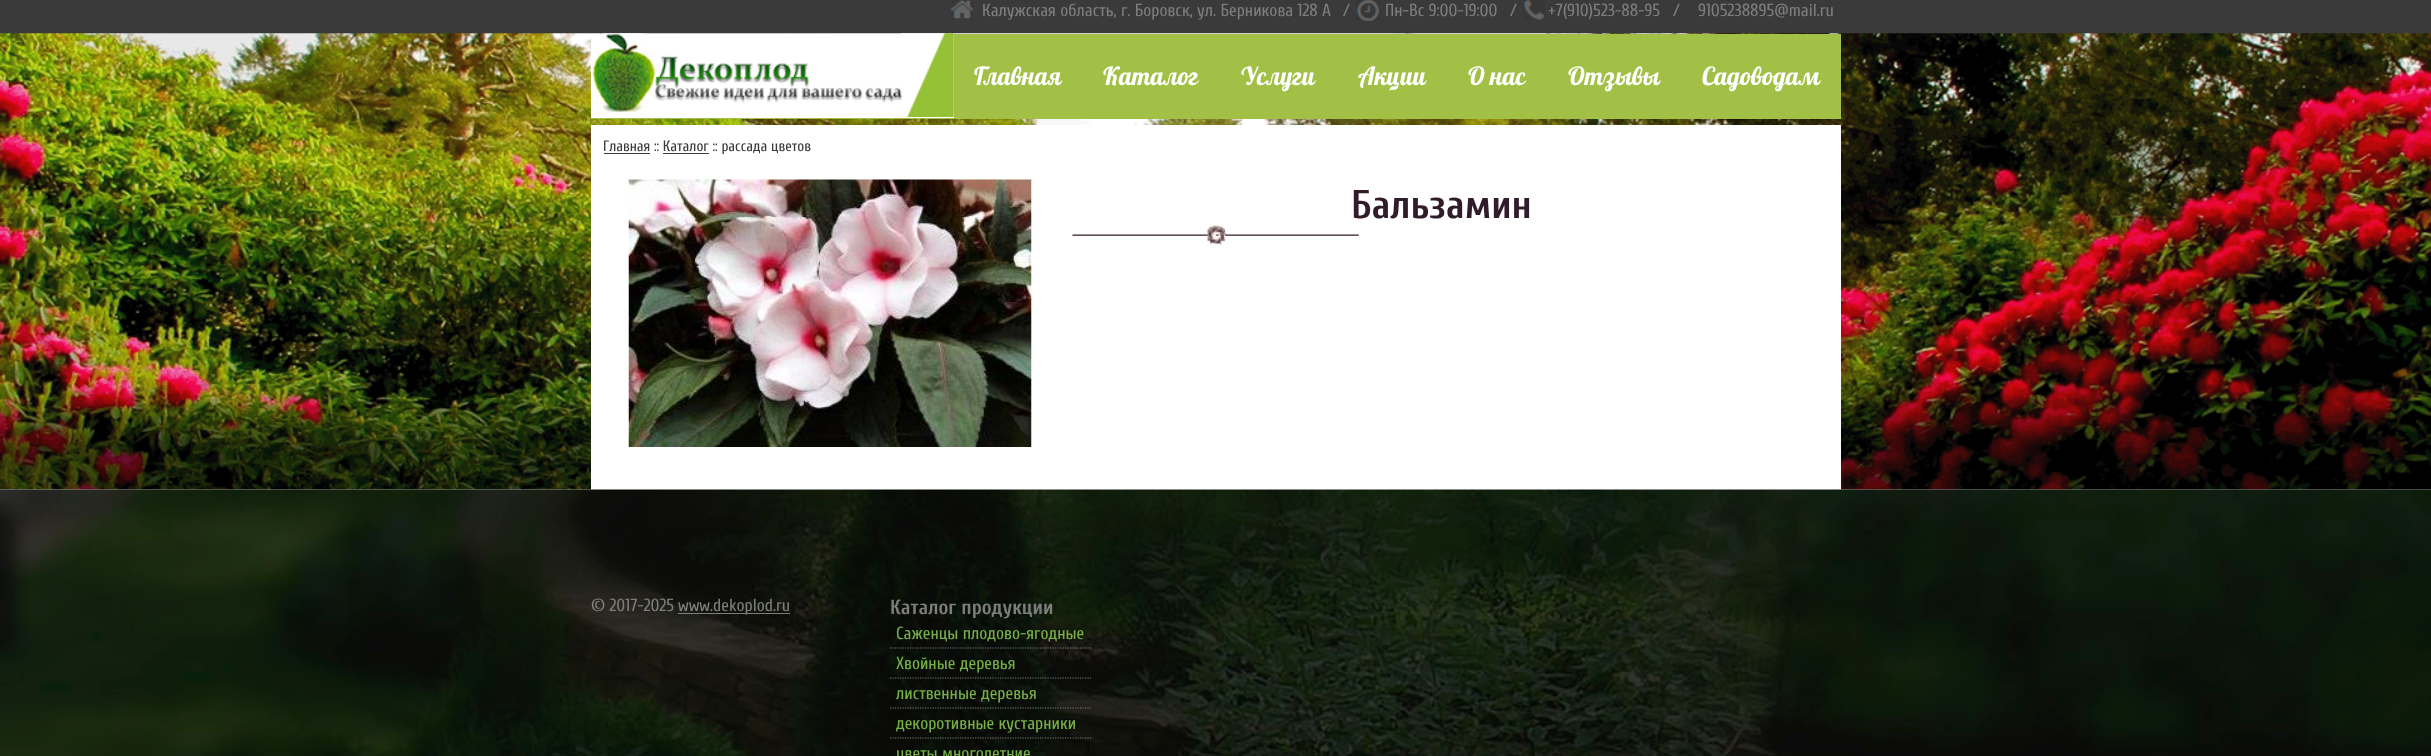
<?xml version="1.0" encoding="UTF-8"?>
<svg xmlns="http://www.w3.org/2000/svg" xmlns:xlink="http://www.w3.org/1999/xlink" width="2431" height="756">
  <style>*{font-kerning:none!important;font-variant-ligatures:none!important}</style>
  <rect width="100%" height="100%" fill="#ffffff" />
  <rect width="2431" height="34" fill="#3a3a3a" />
  <image x="951" y="0" width="22" height="19" xlink:href="image1.png" />
  <image x="1356" y="0" width="24" height="21" xlink:href="image2.png" />
  <image x="1523" y="0" width="22" height="20" xlink:href="image3.png" />
  <image x="0" y="33" width="2431" height="457" xlink:href="image6.png" />
  <rect x="591" y="34" width="1250" height="85" fill="#a2c046" />
  <rect x="591" y="34" width="363" height="84" fill="#ffffff" />
  <image x="901" y="33" width="53" height="84" xlink:href="image4.png" />
  <image x="591" y="33" width="313" height="79" xlink:href="image5.png" />
  <rect x="591" y="125" width="1250" height="365" fill="#ffffff" />
  <rect x="604" y="153" width="46" height="1" fill="#3a3a3a" />
  <rect x="663" y="153" width="46" height="1" fill="#3a3a3a" />
  <image x="628" y="179" width="404" height="268" xlink:href="image7.png" />
  <image x="1072" y="225" width="287" height="21" xlink:href="image8.png" />
  <image x="0" y="489" width="2431" height="267" xlink:href="image9.png" />
  <rect x="678" y="613" width="112" height="1" fill="#7d7d7c" />
  <path d="M 890 648 h 201" fill="none" stroke="#7c7c7c" stroke-width="1.2" stroke-dasharray="1.25 1.25" />
  <path d="M 890 678 h 201" fill="none" stroke="#7c7c7c" stroke-width="1.2" stroke-dasharray="1.25 1.25" />
  <path d="M 890 708 h 201" fill="none" stroke="#7c7c7c" stroke-width="1.2" stroke-dasharray="1.25 1.25" />
  <path d="M 890 738 h 201" fill="none" stroke="#7c7c7c" stroke-width="1.2" stroke-dasharray="1.25 1.25" />
  <text x="982" y="16" style="font-family: Cuprum; font-size: 17.5px; fill: #7d7d7c">Калужская область, г. Боровск, ул. Берникова 128 А</text>
  <text x="1343" y="16" style="font-family: Cuprum; font-size: 17.5px; fill: #7d7d7c">/</text>
  <text x="1385" y="16" style="font-family: Cuprum; font-size: 17.5px; fill: #7d7d7c">Пн-Вс 9:00-19:00</text>
  <text x="1510" y="16" style="font-family: Cuprum; font-size: 17.5px; fill: #7d7d7c">/</text>
  <text x="1548" y="16" style="font-family: Cuprum; font-size: 17.5px; fill: #7d7d7c">+7(910)523-88-95</text>
  <text x="1673" y="16" style="font-family: Cuprum; font-size: 17.5px; fill: #7d7d7c">/</text>
  <text x="1698" y="16" style="font-family: Cuprum; font-size: 17.5px; fill: #7d7d7c">9105238895@mail.ru</text>
  <text x="974" y="85" style="font-family: Lobster; font-size: 25px; fill: #ffffff">Главная</text>
  <text x="1103" y="85" style="font-family: Lobster; font-size: 25px; fill: #ffffff">Каталог</text>
  <text x="1241" y="85" style="font-family: Lobster; font-size: 25px; fill: #ffffff">Услуги</text>
  <text x="1358" y="85" style="font-family: Lobster; font-size: 25px; fill: #ffffff">Акции</text>
  <text x="1468" y="85" style="font-family: Lobster; font-size: 25px; fill: #ffffff">О нас</text>
  <text x="1568" y="85" style="font-family: Lobster; font-size: 25px; fill: #ffffff">Отзывы</text>
  <text x="1702" y="85" style="font-family: Lobster; font-size: 25px; fill: #ffffff">Садоводам</text>
  <text x="603" y="151" style="font-family: Cuprum; font-size: 15px; fill: #3a3a3a">Главная :: Каталог :: рассада цветов</text>
  <text x="1351" y="218" style="font-family: Cuprum; font-size: 40px; font-weight: bold; fill: #311c2b">Бальзамин</text>
  <text x="591" y="611" style="font-family: Cuprum; font-size: 17.5px; fill: #7d7d7c">© 2017-2025</text>
  <text x="678" y="611" style="font-family: Cuprum; font-size: 17.5px; fill: #7d7d7c">www.dekoplod.ru</text>
  <text x="890" y="614" style="font-family: Cuprum; font-size: 20.5px; font-weight: bold; fill: #7d7d7c">Каталог продукции</text>
  <text x="896" y="639" style="font-family: Cuprum; font-size: 17.5px; fill: #77b146">Саженцы плодово-ягодные</text>
  <text x="896" y="669" style="font-family: Cuprum; font-size: 17.5px; fill: #77b146">Хвойные деревья</text>
  <text x="896" y="699" style="font-family: Cuprum; font-size: 17.5px; fill: #77b146">лиственные деревья</text>
  <text x="896" y="729" style="font-family: Cuprum; font-size: 17.5px; fill: #77b146">декоротивные кустарники</text>
  <text x="896" y="759" style="font-family: Cuprum; font-size: 17.5px; fill: #77b146">цветы многолетние</text>
</svg>
